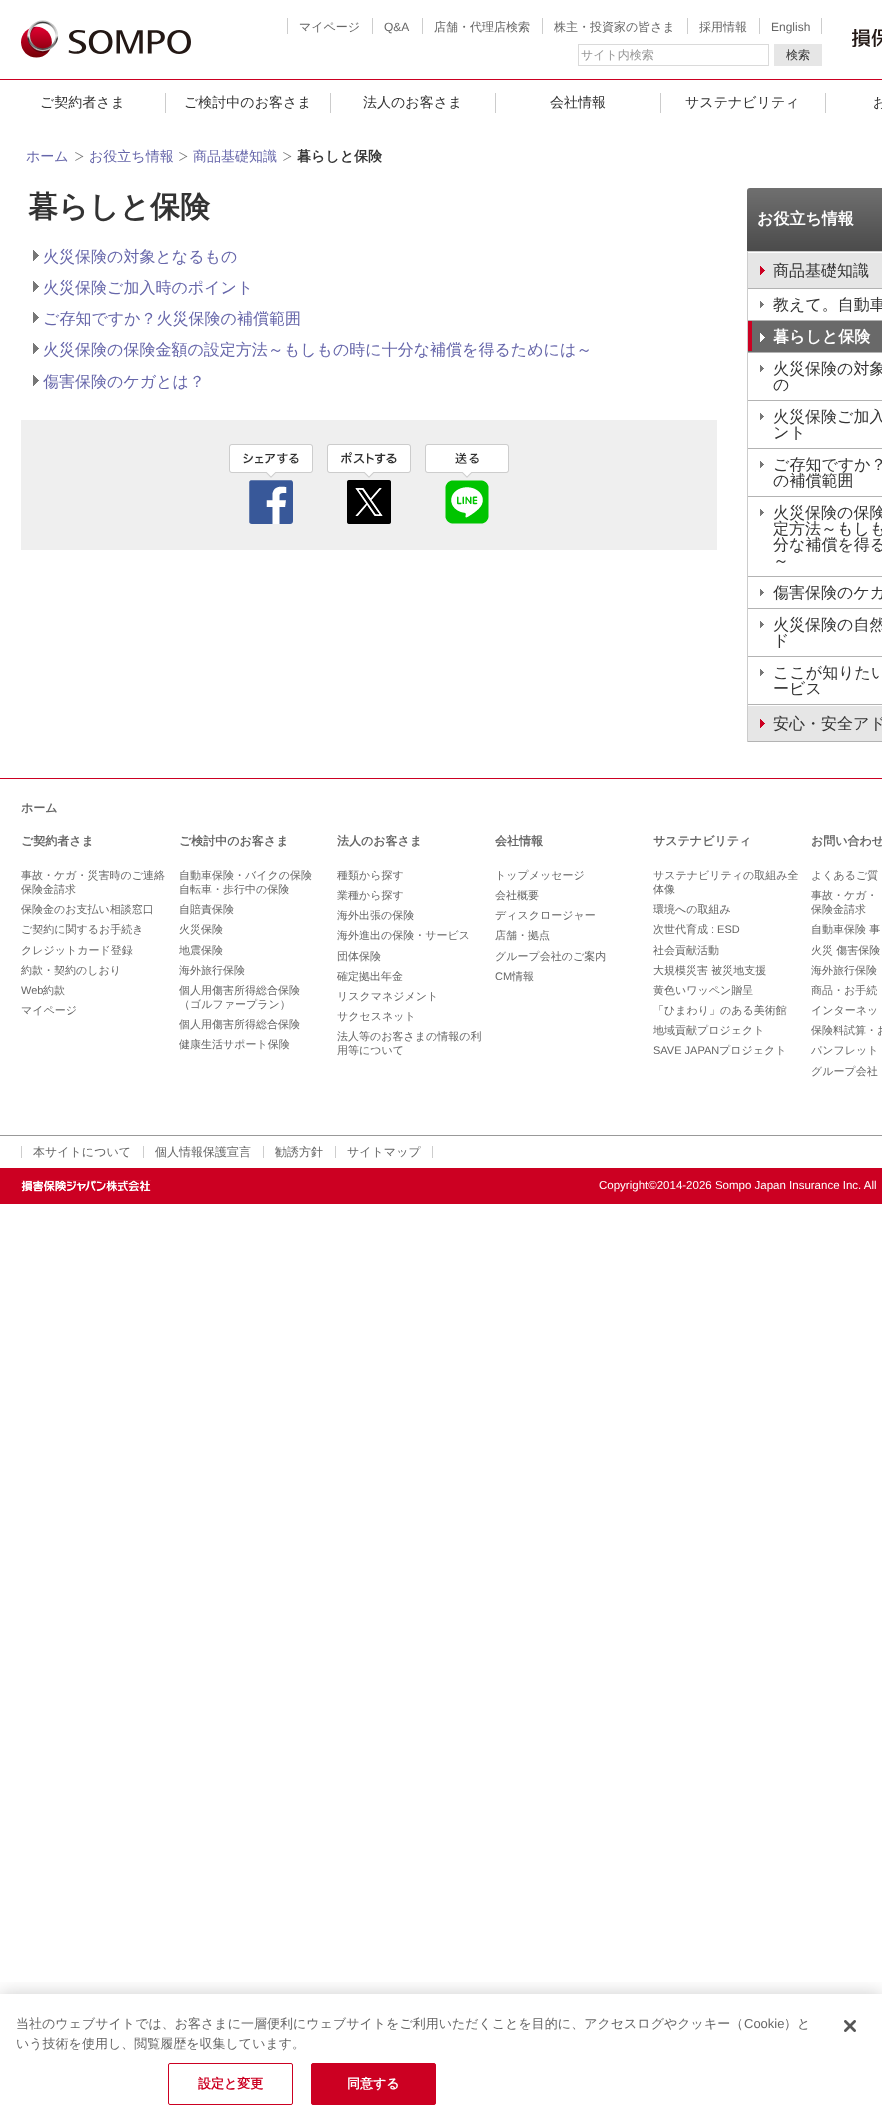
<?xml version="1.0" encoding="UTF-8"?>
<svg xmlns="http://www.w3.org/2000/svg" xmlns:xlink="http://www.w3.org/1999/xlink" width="882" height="2121">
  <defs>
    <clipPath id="clip1"><rect x="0" y="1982" width="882" height="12" /></clipPath>
  </defs>
  <rect width="100%" height="100%" fill="#ffffff" />
  <image x="21" y="20" width="170" height="38" xlink:href="image1.png" />
  <rect x="287" y="18" width="1" height="16" fill="#cdcdcd" />
  <rect x="372" y="18" width="1" height="16" fill="#cdcdcd" />
  <rect x="422" y="18" width="1" height="16" fill="#cdcdcd" />
  <rect x="542" y="18" width="1" height="16" fill="#cdcdcd" />
  <rect x="687" y="18" width="1" height="16" fill="#cdcdcd" />
  <rect x="759" y="18" width="1" height="16" fill="#cdcdcd" />
  <rect x="821" y="18" width="1" height="16" fill="#cdcdcd" />
  <image x="852" y="29" width="30" height="18" xlink:href="image2.png" />
  <rect x="578.5" y="44.5" width="190" height="21" fill="none" stroke="#dadada" />
  <rect x="774" y="44" width="48" height="22" fill="#e6e6e6" />
  <rect y="79" width="882" height="1" fill="#cc0022" />
  <rect x="165" y="93" width="1" height="20" fill="#cccccc" />
  <rect x="330" y="93" width="1" height="20" fill="#cccccc" />
  <rect x="495" y="93" width="1" height="20" fill="#cccccc" />
  <rect x="660" y="93" width="1" height="20" fill="#cccccc" />
  <rect x="825" y="93" width="1" height="20" fill="#cccccc" />
  <image x="75" y="152" width="9" height="9" xlink:href="image3.png" />
  <image x="179" y="152" width="9" height="9" xlink:href="image3.png" />
  <image x="283" y="152" width="9" height="9" xlink:href="image3.png" />
  <image x="33" y="250" width="6" height="11" xlink:href="image4.png" />
  <image x="33" y="281" width="6" height="11" xlink:href="image4.png" />
  <image x="33" y="312" width="6" height="11" xlink:href="image4.png" />
  <image x="33" y="343" width="6" height="11" xlink:href="image4.png" />
  <image x="33" y="375" width="6" height="11" xlink:href="image4.png" />
  <rect x="21" y="420" width="696" height="130" fill="#efefef" />
  <image x="229" y="444" width="84" height="80" xlink:href="image5.png" />
  <image x="327" y="444" width="84" height="80" xlink:href="image6.png" />
  <image x="425" y="444" width="84" height="80" xlink:href="image7.png" />
  <image x="747" y="188" width="135" height="63" xlink:href="image8.png" />
  <rect x="747" y="251" width="135" height="1" fill="#cccccc" />
  <rect x="747" y="251" width="1" height="491" fill="#cccccc" />
  <rect x="748" y="253" width="134" height="35" fill="#e6e6e6" />
  <image x="760" y="266" width="5" height="9" xlink:href="image9.png" />
  <rect x="748" y="288" width="134" height="1" fill="#b3b3b3" />
  <image x="760" y="301" width="4" height="7" xlink:href="image10.png" />
  <rect x="748" y="320" width="134" height="1" fill="#b3b3b3" />
  <rect x="748" y="321" width="134" height="31" fill="#696969" />
  <image x="760" y="333" width="5" height="9" xlink:href="image11.png" />
  <rect x="748" y="352" width="134" height="1" fill="#b3b3b3" />
  <rect x="748" y="321" width="4" height="30" fill="#cc0022" />
  <image x="760" y="365" width="4" height="7" xlink:href="image10.png" />
  <rect x="748" y="400" width="134" height="1" fill="#b3b3b3" />
  <image x="760" y="413" width="4" height="7" xlink:href="image10.png" />
  <rect x="748" y="448" width="134" height="1" fill="#b3b3b3" />
  <image x="760" y="461" width="4" height="7" xlink:href="image10.png" />
  <rect x="748" y="496" width="134" height="1" fill="#b3b3b3" />
  <image x="760" y="509" width="4" height="7" xlink:href="image10.png" />
  <rect x="748" y="576" width="134" height="1" fill="#b3b3b3" />
  <image x="760" y="589" width="4" height="7" xlink:href="image10.png" />
  <rect x="748" y="608" width="134" height="1" fill="#b3b3b3" />
  <image x="760" y="621" width="4" height="7" xlink:href="image10.png" />
  <rect x="748" y="656" width="134" height="1" fill="#b3b3b3" />
  <image x="760" y="669" width="4" height="7" xlink:href="image10.png" />
  <rect x="748" y="704" width="134" height="1" fill="#b3b3b3" />
  <rect x="748" y="706" width="134" height="35" fill="#e6e6e6" />
  <image x="760" y="719" width="5" height="9" xlink:href="image9.png" />
  <rect x="748" y="741" width="134" height="1" fill="#b3b3b3" />
  <rect y="778" width="882" height="1" fill="#cc0022" />
  <rect y="1135" width="882" height="1" fill="#999999" />
  <rect x="21" y="1146" width="1" height="12" fill="#cdcdcd" />
  <rect x="143" y="1146" width="1" height="12" fill="#cdcdcd" />
  <rect x="263" y="1146" width="1" height="12" fill="#cdcdcd" />
  <rect x="335" y="1146" width="1" height="12" fill="#cdcdcd" />
  <rect x="432" y="1146" width="1" height="12" fill="#cdcdcd" />
  <rect y="1168" width="882" height="36" fill="#cc0022" />
  <image x="21" y="1180" width="130" height="12" xlink:href="image12.png" />
  <g clip-path="url(#clip1)">
    <rect y="1994" width="882" height="127" fill="#000000" fill-opacity="0.2" filter="blur(9px)" />
  </g>
  <rect x="168.5" y="2063.5" width="124" height="41" rx="1.5" fill="none" stroke="#cc0022" />
  <rect x="311.5" y="2063.5" width="124" height="41" rx="1.5" fill="#cc0022" stroke="#cc0022" />
  <image x="844" y="2020" width="12" height="12" xlink:href="image13.png" />
  <text x="299" y="31" style="font-family: WenQuanYi Zen Hei; font-size: 12px; font-weight: 500; fill: #666666">マイページ</text>
  <text x="384" y="31" style="font-family: Liberation Sans; font-size: 12px; fill: #666666">Q&amp;A</text>
  <text x="434" y="31" style="font-family: WenQuanYi Zen Hei; font-size: 12px; font-weight: 500; fill: #666666">店舗・代理店検索</text>
  <text x="554" y="31" style="font-family: WenQuanYi Zen Hei; font-size: 12px; font-weight: 500; fill: #666666">株主・投資家の皆さま</text>
  <text x="699" y="31" style="font-family: WenQuanYi Zen Hei; font-size: 12px; font-weight: 500; fill: #666666">採用情報</text>
  <text x="771" y="31" style="font-family: Liberation Sans; font-size: 12px; fill: #666666">English</text>
  <text x="581" y="59" style="font-family: WenQuanYi Zen Hei; font-size: 12px; font-weight: 500; fill: #969696">サイト内検索</text>
  <text x="786" y="59" style="font-family: WenQuanYi Zen Hei; font-size: 12px; font-weight: 500; fill: #333333">検索</text>
  <text x="40" y="107" style="font-family: WenQuanYi Zen Hei; font-size: 14px; font-weight: 500; fill: #333333">ご契約者さま</text>
  <text x="184" y="107" style="font-family: WenQuanYi Zen Hei; font-size: 14px; font-weight: 500; fill: #333333">ご検討中のお客さま</text>
  <text x="363" y="107" style="font-family: WenQuanYi Zen Hei; font-size: 14px; font-weight: 500; fill: #333333">法人のお客さま</text>
  <text x="550" y="107" style="font-family: WenQuanYi Zen Hei; font-size: 14px; font-weight: 500; fill: #333333">会社情報</text>
  <text x="685" y="107" style="font-family: WenQuanYi Zen Hei; font-size: 14px; font-weight: 500; fill: #333333">サステナビリティ</text>
  <text x="873" y="107" style="font-family: WenQuanYi Zen Hei; font-size: 14px; font-weight: 500; fill: #333333">お</text>
  <text x="26" y="161" style="font-family: WenQuanYi Zen Hei; font-size: 14px; font-weight: 500; fill: #6666aa">ホーム</text>
  <text x="89" y="161" style="font-family: WenQuanYi Zen Hei; font-size: 14px; font-weight: 500; fill: #6666aa">お役立ち情報</text>
  <text x="193" y="161" style="font-family: WenQuanYi Zen Hei; font-size: 14px; font-weight: 500; fill: #6666aa">商品基礎知識</text>
  <text x="297" y="161" style="font-family: WenQuanYi Zen Hei; font-size: 14px; font-weight: bold; fill: #333333">暮らしと保険</text>
  <text x="28" y="217" style="font-family: WenQuanYi Zen Hei; font-size: 30px; font-weight: bold; fill: #333333">暮らしと保険</text>
  <text x="43" y="262" style="font-family: WenQuanYi Zen Hei; font-size: 16px; font-weight: 500; fill: #6666aa">火災保険の対象となるもの</text>
  <text x="43" y="293" style="font-family: WenQuanYi Zen Hei; font-size: 16px; font-weight: 500; fill: #6666aa">火災保険ご加入時のポイント</text>
  <text x="43" y="324" style="font-family: WenQuanYi Zen Hei; font-size: 16px; font-weight: 500; fill: #6666aa">ご存知ですか？火災保険の補償範囲</text>
  <text x="43" y="355" style="font-family: WenQuanYi Zen Hei; font-size: 16px; font-weight: 500; fill: #6666aa">火災保険の保険金額の設定方法～もしもの時に十分な補償を得るためには～</text>
  <text x="43" y="387" style="font-family: WenQuanYi Zen Hei; font-size: 16px; font-weight: 500; fill: #6666aa">傷害保険のケガとは？</text>
  <text x="757" y="224" style="font-family: WenQuanYi Zen Hei; font-size: 16px; font-weight: bold; fill: #ffffff">お役立ち情報</text>
  <text x="773" y="276" style="font-family: WenQuanYi Zen Hei; font-size: 16px; font-weight: 500; fill: #333333">商品基礎知識</text>
  <text x="773" y="310" style="font-family: WenQuanYi Zen Hei; font-size: 16px; font-weight: 500; fill: #333333">教えて。自動車</text>
  <text x="773" y="342" style="font-family: WenQuanYi Zen Hei; font-size: 16px; font-weight: bold; fill: #ffffff">暮らしと保険</text>
  <text x="773" y="374" style="font-family: WenQuanYi Zen Hei; font-size: 16px; font-weight: 500; fill: #333333">火災保険の対象</text>
  <text x="773" y="390" style="font-family: WenQuanYi Zen Hei; font-size: 16px; font-weight: 500; fill: #333333">の</text>
  <text x="773" y="422" style="font-family: WenQuanYi Zen Hei; font-size: 16px; font-weight: 500; fill: #333333">火災保険ご加入</text>
  <text x="773" y="438" style="font-family: WenQuanYi Zen Hei; font-size: 16px; font-weight: 500; fill: #333333">ント</text>
  <text x="773" y="470" style="font-family: WenQuanYi Zen Hei; font-size: 16px; font-weight: 500; fill: #333333">ご存知ですか？</text>
  <text x="773" y="486" style="font-family: WenQuanYi Zen Hei; font-size: 16px; font-weight: 500; fill: #333333">の補償範囲</text>
  <text x="773" y="518" style="font-family: WenQuanYi Zen Hei; font-size: 16px; font-weight: 500; fill: #333333">火災保険の保険</text>
  <text x="773" y="534" style="font-family: WenQuanYi Zen Hei; font-size: 16px; font-weight: 500; fill: #333333">定方法～もしも</text>
  <text x="773" y="550" style="font-family: WenQuanYi Zen Hei; font-size: 16px; font-weight: 500; fill: #333333">分な補償を得る</text>
  <text x="773" y="566" style="font-family: WenQuanYi Zen Hei; font-size: 16px; font-weight: 500; fill: #333333">～</text>
  <text x="773" y="598" style="font-family: WenQuanYi Zen Hei; font-size: 16px; font-weight: 500; fill: #333333">傷害保険のケガ</text>
  <text x="773" y="630" style="font-family: WenQuanYi Zen Hei; font-size: 16px; font-weight: 500; fill: #333333">火災保険の自然</text>
  <text x="773" y="646" style="font-family: WenQuanYi Zen Hei; font-size: 16px; font-weight: 500; fill: #333333">ド</text>
  <text x="773" y="678" style="font-family: WenQuanYi Zen Hei; font-size: 16px; font-weight: 500; fill: #333333">ここが知りたい</text>
  <text x="773" y="694" style="font-family: WenQuanYi Zen Hei; font-size: 16px; font-weight: 500; fill: #333333">ービス</text>
  <text x="773" y="729" style="font-family: WenQuanYi Zen Hei; font-size: 16px; font-weight: 500; fill: #333333">安心・安全アド</text>
  <text x="21" y="812" style="font-family: WenQuanYi Zen Hei; font-size: 12px; font-weight: bold; fill: #666666">ホーム</text>
  <text x="21" y="845" style="font-family: WenQuanYi Zen Hei; font-size: 12px; font-weight: bold; fill: #666666">ご契約者さま</text>
  <text x="21" y="879" style="font-family: WenQuanYi Zen Hei; font-size: 11px; font-weight: 500; fill: #666666">事故・ケガ・災害時のご連絡</text>
  <text x="21" y="893" style="font-family: WenQuanYi Zen Hei; font-size: 11px; font-weight: 500; fill: #666666">保険金請求</text>
  <text x="21" y="913" style="font-family: WenQuanYi Zen Hei; font-size: 11px; font-weight: 500; fill: #666666">保険金のお支払い相談窓口</text>
  <text x="21" y="933" style="font-family: WenQuanYi Zen Hei; font-size: 11px; font-weight: 500; fill: #666666">ご契約に関するお手続き</text>
  <text x="21" y="954" style="font-family: WenQuanYi Zen Hei; font-size: 11px; font-weight: 500; fill: #666666">クレジットカード登録</text>
  <text x="21" y="974" style="font-family: WenQuanYi Zen Hei; font-size: 11px; font-weight: 500; fill: #666666">約款・契約のしおり</text>
  <text x="21" y="994" style="font-family: Liberation Sans; font-size: 11px; fill: #666666">Web</text>
  <text x="43" y="994" style="font-family: WenQuanYi Zen Hei; font-size: 11px; font-weight: 500; fill: #666666">約款</text>
  <text x="21" y="1014" style="font-family: WenQuanYi Zen Hei; font-size: 11px; font-weight: 500; fill: #666666">マイページ</text>
  <text x="179" y="845" style="font-family: WenQuanYi Zen Hei; font-size: 12px; font-weight: bold; fill: #666666">ご検討中のお客さま</text>
  <text x="179" y="879" style="font-family: WenQuanYi Zen Hei; font-size: 11px; font-weight: 500; fill: #666666">自動車保険・バイクの保険</text>
  <text x="179" y="893" style="font-family: WenQuanYi Zen Hei; font-size: 11px; font-weight: 500; fill: #666666">自転車・歩行中の保険</text>
  <text x="179" y="913" style="font-family: WenQuanYi Zen Hei; font-size: 11px; font-weight: 500; fill: #666666">自賠責保険</text>
  <text x="179" y="933" style="font-family: WenQuanYi Zen Hei; font-size: 11px; font-weight: 500; fill: #666666">火災保険</text>
  <text x="179" y="954" style="font-family: WenQuanYi Zen Hei; font-size: 11px; font-weight: 500; fill: #666666">地震保険</text>
  <text x="179" y="974" style="font-family: WenQuanYi Zen Hei; font-size: 11px; font-weight: 500; fill: #666666">海外旅行保険</text>
  <text x="179" y="994" style="font-family: WenQuanYi Zen Hei; font-size: 11px; font-weight: 500; fill: #666666">個人用傷害所得総合保険</text>
  <text x="179" y="1008" style="font-family: WenQuanYi Zen Hei; font-size: 11px; font-weight: 500; fill: #666666">（ゴルファープラン）</text>
  <text x="179" y="1028" style="font-family: WenQuanYi Zen Hei; font-size: 11px; font-weight: 500; fill: #666666">個人用傷害所得総合保険</text>
  <text x="179" y="1048" style="font-family: WenQuanYi Zen Hei; font-size: 11px; font-weight: 500; fill: #666666">健康生活サポート保険</text>
  <text x="337" y="845" style="font-family: WenQuanYi Zen Hei; font-size: 12px; font-weight: bold; fill: #666666">法人のお客さま</text>
  <text x="337" y="879" style="font-family: WenQuanYi Zen Hei; font-size: 11px; font-weight: 500; fill: #666666">種類から探す</text>
  <text x="337" y="899" style="font-family: WenQuanYi Zen Hei; font-size: 11px; font-weight: 500; fill: #666666">業種から探す</text>
  <text x="337" y="919" style="font-family: WenQuanYi Zen Hei; font-size: 11px; font-weight: 500; fill: #666666">海外出張の保険</text>
  <text x="337" y="939" style="font-family: WenQuanYi Zen Hei; font-size: 11px; font-weight: 500; fill: #666666">海外進出の保険・サービス</text>
  <text x="337" y="960" style="font-family: WenQuanYi Zen Hei; font-size: 11px; font-weight: 500; fill: #666666">団体保険</text>
  <text x="337" y="980" style="font-family: WenQuanYi Zen Hei; font-size: 11px; font-weight: 500; fill: #666666">確定拠出年金</text>
  <text x="337" y="1000" style="font-family: WenQuanYi Zen Hei; font-size: 11px; font-weight: 500; fill: #666666">リスクマネジメント</text>
  <text x="337" y="1020" style="font-family: WenQuanYi Zen Hei; font-size: 11px; font-weight: 500; fill: #666666">サクセスネット</text>
  <text x="337" y="1040" style="font-family: WenQuanYi Zen Hei; font-size: 11px; font-weight: 500; fill: #666666">法人等のお客さまの情報の利</text>
  <text x="337" y="1054" style="font-family: WenQuanYi Zen Hei; font-size: 11px; font-weight: 500; fill: #666666">用等について</text>
  <text x="495" y="845" style="font-family: WenQuanYi Zen Hei; font-size: 12px; font-weight: bold; fill: #666666">会社情報</text>
  <text x="495" y="879" style="font-family: WenQuanYi Zen Hei; font-size: 11px; font-weight: 500; fill: #666666">トップメッセージ</text>
  <text x="495" y="899" style="font-family: WenQuanYi Zen Hei; font-size: 11px; font-weight: 500; fill: #666666">会社概要</text>
  <text x="495" y="919" style="font-family: WenQuanYi Zen Hei; font-size: 11px; font-weight: 500; fill: #666666">ディスクロージャー</text>
  <text x="495" y="939" style="font-family: WenQuanYi Zen Hei; font-size: 11px; font-weight: 500; fill: #666666">店舗・拠点</text>
  <text x="495" y="960" style="font-family: WenQuanYi Zen Hei; font-size: 11px; font-weight: 500; fill: #666666">グループ会社のご案内</text>
  <text x="495" y="980" style="font-family: Liberation Sans; font-size: 11px; fill: #666666">CM</text>
  <text x="512" y="980" style="font-family: WenQuanYi Zen Hei; font-size: 11px; font-weight: 500; fill: #666666">情報</text>
  <text x="653" y="845" style="font-family: WenQuanYi Zen Hei; font-size: 12px; font-weight: bold; fill: #666666">サステナビリティ</text>
  <text x="653" y="879" style="font-family: WenQuanYi Zen Hei; font-size: 11px; font-weight: 500; fill: #666666">サステナビリティの取組み全</text>
  <text x="653" y="893" style="font-family: WenQuanYi Zen Hei; font-size: 11px; font-weight: 500; fill: #666666">体像</text>
  <text x="653" y="913" style="font-family: WenQuanYi Zen Hei; font-size: 11px; font-weight: 500; fill: #666666">環境への取組み</text>
  <text x="653" y="933" style="font-family: WenQuanYi Zen Hei; font-size: 11px; font-weight: 500; fill: #666666">次世代育成</text>
  <text x="711" y="933" style="font-family: Liberation Sans; font-size: 11px; fill: #666666">: ESD</text>
  <text x="653" y="954" style="font-family: WenQuanYi Zen Hei; font-size: 11px; font-weight: 500; fill: #666666">社会貢献活動</text>
  <text x="653" y="974" style="font-family: WenQuanYi Zen Hei; font-size: 11px; font-weight: 500; fill: #666666">大規模災害 被災地支援</text>
  <text x="653" y="994" style="font-family: WenQuanYi Zen Hei; font-size: 11px; font-weight: 500; fill: #666666">黄色いワッペン贈呈</text>
  <text x="653" y="1014" style="font-family: WenQuanYi Zen Hei; font-size: 11px; font-weight: 500; fill: #666666">「ひまわり」のある美術館</text>
  <text x="653" y="1034" style="font-family: WenQuanYi Zen Hei; font-size: 11px; font-weight: 500; fill: #666666">地域貢献プロジェクト</text>
  <text x="653" y="1054" style="font-family: Liberation Sans; font-size: 11px; fill: #666666">SAVE JAPAN</text>
  <text x="719" y="1054" style="font-family: WenQuanYi Zen Hei; font-size: 11px; font-weight: 500; fill: #666666">プロジェクト</text>
  <text x="811" y="845" style="font-family: WenQuanYi Zen Hei; font-size: 12px; font-weight: bold; fill: #666666">お問い合わせ</text>
  <text x="811" y="879" style="font-family: WenQuanYi Zen Hei; font-size: 11px; font-weight: 500; fill: #666666">よくあるご質</text>
  <text x="811" y="899" style="font-family: WenQuanYi Zen Hei; font-size: 11px; font-weight: 500; fill: #666666">事故・ケガ・</text>
  <text x="811" y="913" style="font-family: WenQuanYi Zen Hei; font-size: 11px; font-weight: 500; fill: #666666">保険金請求</text>
  <text x="811" y="933" style="font-family: WenQuanYi Zen Hei; font-size: 11px; font-weight: 500; fill: #666666">自動車保険 事</text>
  <text x="811" y="954" style="font-family: WenQuanYi Zen Hei; font-size: 11px; font-weight: 500; fill: #666666">火災 傷害保険</text>
  <text x="811" y="974" style="font-family: WenQuanYi Zen Hei; font-size: 11px; font-weight: 500; fill: #666666">海外旅行保険</text>
  <text x="811" y="994" style="font-family: WenQuanYi Zen Hei; font-size: 11px; font-weight: 500; fill: #666666">商品・お手続</text>
  <text x="811" y="1014" style="font-family: WenQuanYi Zen Hei; font-size: 11px; font-weight: 500; fill: #666666">インターネッ</text>
  <text x="811" y="1034" style="font-family: WenQuanYi Zen Hei; font-size: 11px; font-weight: 500; fill: #666666">保険料試算・お</text>
  <text x="811" y="1054" style="font-family: WenQuanYi Zen Hei; font-size: 11px; font-weight: 500; fill: #666666">パンフレット</text>
  <text x="811" y="1075" style="font-family: WenQuanYi Zen Hei; font-size: 11px; font-weight: 500; fill: #666666">グループ会社</text>
  <text x="33" y="1156" style="font-family: WenQuanYi Zen Hei; font-size: 12px; font-weight: 500; fill: #666666">本サイトについて</text>
  <text x="155" y="1156" style="font-family: WenQuanYi Zen Hei; font-size: 12px; font-weight: 500; fill: #666666">個人情報保護宣言</text>
  <text x="275" y="1156" style="font-family: WenQuanYi Zen Hei; font-size: 12px; font-weight: 500; fill: #666666">勧誘方針</text>
  <text x="347" y="1156" style="font-family: WenQuanYi Zen Hei; font-size: 12px; font-weight: 500; fill: #666666">サイトマップ</text>
  <text x="599" y="1189" style="font-family: Liberation Sans; font-size: 11.5px; fill: #ffffff">Copyright©2014-2026 Sompo Japan Insurance Inc. All</text>
  <text x="16" y="2028" style="font-family: WenQuanYi Zen Hei; font-size: 13px; font-weight: 500; fill: #666666">当社のウェブサイトでは、お客さまに一層便利にウェブサイトをご利用いただくことを目的に、アクセスログやクッキー（</text>
  <text x="744" y="2028" style="font-family: Liberation Sans; font-size: 13px; fill: #666666">Cookie</text>
  <text x="784" y="2028" style="font-family: WenQuanYi Zen Hei; font-size: 13px; font-weight: 500; fill: #666666">）と</text>
  <text x="16" y="2048" style="font-family: WenQuanYi Zen Hei; font-size: 13px; font-weight: 500; fill: #666666">いう技術を使用し、閲覧履歴を収集しています。</text>
  <text x="198" y="2088" style="font-family: WenQuanYi Zen Hei; font-size: 13px; font-weight: bold; fill: #cc0022">設定と変更</text>
  <text x="347" y="2088" style="font-family: WenQuanYi Zen Hei; font-size: 13px; font-weight: bold; fill: #ffffff">同意する</text>
</svg>
